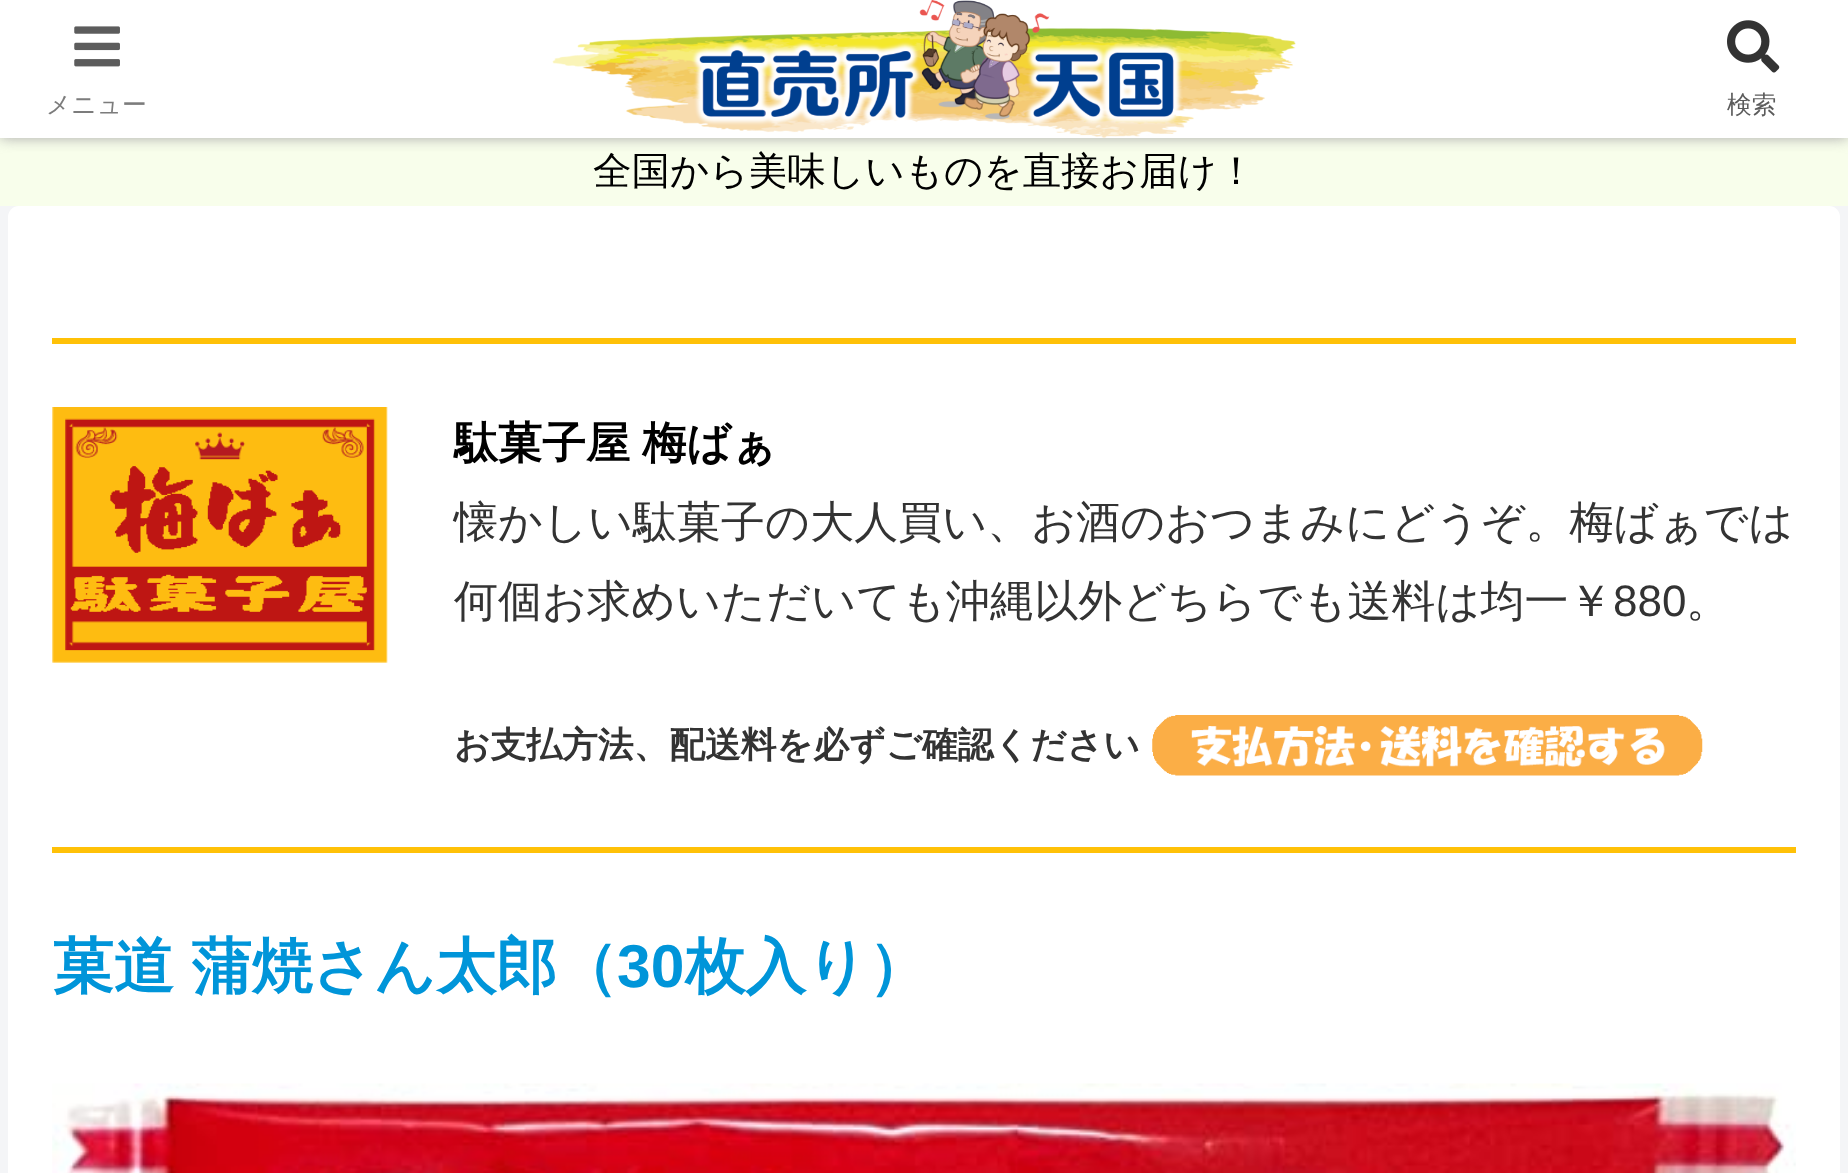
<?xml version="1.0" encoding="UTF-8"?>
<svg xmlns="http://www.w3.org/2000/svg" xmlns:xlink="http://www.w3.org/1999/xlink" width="1848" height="1173">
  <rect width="100%" height="100%" fill="#f4f5f7" />
  <rect y="138" width="1848" height="68" fill="#f8feeb" />
  <rect width="1848" height="138" fill="#a9a9a9" filter="blur(7px)" />
  <rect width="1848" height="138" fill="#ffffff" />
  <image x="74" y="26" width="46" height="41" xlink:href="image1.png" />
  <image x="552" y="0" width="744" height="138" xlink:href="image2.png" />
  <image x="1727" y="20" width="53" height="53" xlink:href="image3.png" />
  <rect x="8" y="206" width="1832" height="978" rx="11" fill="#ffffff" />
  <rect x="52" y="338" width="1744" height="6" fill="#ffc107" />
  <image x="52" y="407" width="336" height="256" xlink:href="image4.png" />
  <image x="1152" y="715" width="551" height="61" xlink:href="image5.png" />
  <rect x="52" y="847" width="1744" height="6" fill="#ffc107" />
  <image x="52" y="1083" width="1744" height="90" xlink:href="image6.png" />
  <text x="46" y="113" style="font-family: WenQuanYi Zen Hei; font-size: 24.75px; font-weight: 500; fill: #7c7c7c">メニュー</text>
  <text x="1727" y="113" style="font-family: WenQuanYi Zen Hei; font-size: 24.75px; font-weight: 500; fill: #5c5c5c">検索</text>
  <text x="593" y="184" style="font-family: WenQuanYi Zen Hei; font-size: 38.5px; font-weight: 500; fill: #000000">全国から美味しいものを直接お届け！</text>
  <text x="454" y="458" word-spacing="-1" style="font-family: WenQuanYi Zen Hei; font-size: 44px; font-weight: bold; fill: #000000">駄菓子屋 梅ばぁ</text>
  <text x="454" y="537" style="font-family: WenQuanYi Zen Hei; font-size: 44px; font-weight: 500; fill: #333333">懐かしい駄菓子の大人買い、お酒のおつまみにどうぞ。梅ばぁでは</text>
  <text x="454" y="616" style="font-family: WenQuanYi Zen Hei; font-size: 44px; font-weight: 500; fill: #333333">何個お求めいただいても沖縄以外どちらでも送料は均一￥</text>
  <text x="1613" y="616" style="font-family: Liberation Sans; font-size: 44px; fill: #333333">880</text>
  <text x="1686" y="616" style="font-family: WenQuanYi Zen Hei; font-size: 44px; font-weight: 500; fill: #333333">。</text>
  <text x="454" y="757" style="font-family: WenQuanYi Zen Hei; font-size: 35.75px; font-weight: bold; fill: #333333">お支払方法、配送料を必ずご確認ください</text>
  <text x="53" y="987" word-spacing="-1" style="font-family: WenQuanYi Zen Hei; font-size: 60.5px; font-weight: bold; fill: #0095d9">菓道 蒲焼さん太郎（</text>
  <text x="617" y="987" style="font-family: Liberation Sans; font-size: 60.5px; font-weight: bold; fill: #0095d9">30</text>
  <text x="685" y="987" style="font-family: WenQuanYi Zen Hei; font-size: 60.5px; font-weight: bold; fill: #0095d9">枚入り）</text>
</svg>
